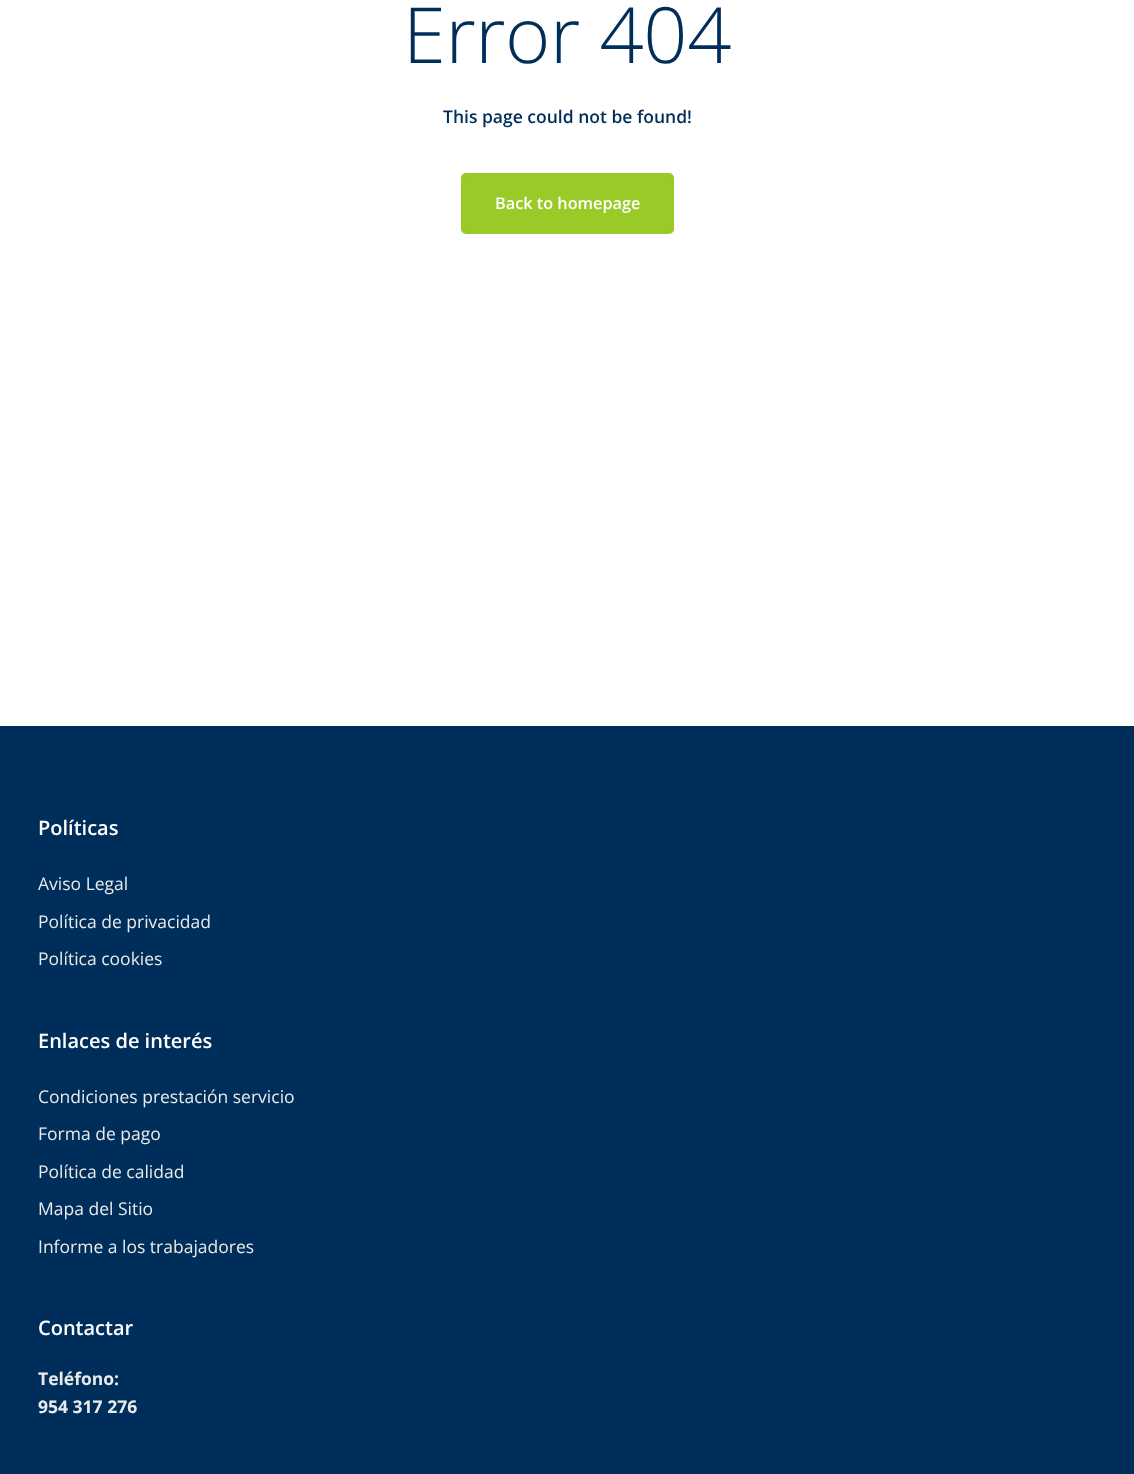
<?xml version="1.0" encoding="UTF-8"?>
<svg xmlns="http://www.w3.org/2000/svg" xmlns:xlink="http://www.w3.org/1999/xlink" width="1134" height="1474">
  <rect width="100%" height="100%" fill="#ffffff" />
  <rect x="462.5" y="174.5" width="210" height="58" rx="3.5" fill="#9aca28" stroke="#9aca28" stroke-width="3" />
  <rect y="726" width="1134" height="748" fill="#002e5a" />
  <text x="403" y="63" style="font-family: Open Sans; font-size: 77.5px; font-weight: 300; letter-spacing: -0.4px; fill: #002e5a">Error 404</text>
  <text x="443" y="123" style="font-family: Open Sans; font-size: 17.5px; font-weight: 600; fill: #002e5a">This page could not be found!</text>
  <text x="495" y="209" style="font-family: Open Sans; font-size: 16.25px; font-weight: 600; fill: #ffffff">Back to homepage</text>
  <text x="38" y="835" style="font-family: Open Sans; font-size: 20px; font-weight: 600; fill: #ffffff">Políticas</text>
  <text x="38" y="890" style="font-family: Open Sans; font-size: 17.5px; fill: #eaeaea">Aviso Legal</text>
  <text x="38" y="928" style="font-family: Open Sans; font-size: 17.5px; fill: #eaeaea">Política de privacidad</text>
  <text x="38" y="965" style="font-family: Open Sans; font-size: 17.5px; fill: #eaeaea">Política cookies</text>
  <text x="38" y="1048" style="font-family: Open Sans; font-size: 20px; font-weight: 600; fill: #ffffff">Enlaces de interés</text>
  <text x="38" y="1103" style="font-family: Open Sans; font-size: 17.5px; fill: #eaeaea">Condiciones prestación servicio</text>
  <text x="38" y="1140" style="font-family: Open Sans; font-size: 17.5px; fill: #eaeaea">Forma de pago</text>
  <text x="38" y="1178" style="font-family: Open Sans; font-size: 17.5px; fill: #eaeaea">Política de calidad</text>
  <text x="38" y="1215" style="font-family: Open Sans; font-size: 17.5px; fill: #eaeaea">Mapa del Sitio</text>
  <text x="38" y="1253" style="font-family: Open Sans; font-size: 17.5px; fill: #eaeaea">Informe a los trabajadores</text>
  <text x="38" y="1335" style="font-family: Open Sans; font-size: 20px; font-weight: 600; fill: #ffffff">Contactar</text>
  <text x="38" y="1385" style="font-family: Open Sans; font-size: 17.5px; font-weight: bold; fill: #eaeaea">Teléfono:</text>
  <text x="38" y="1413" style="font-family: Open Sans; font-size: 17.5px; font-weight: bold; fill: #eaeaea">954 317 276</text>
</svg>
